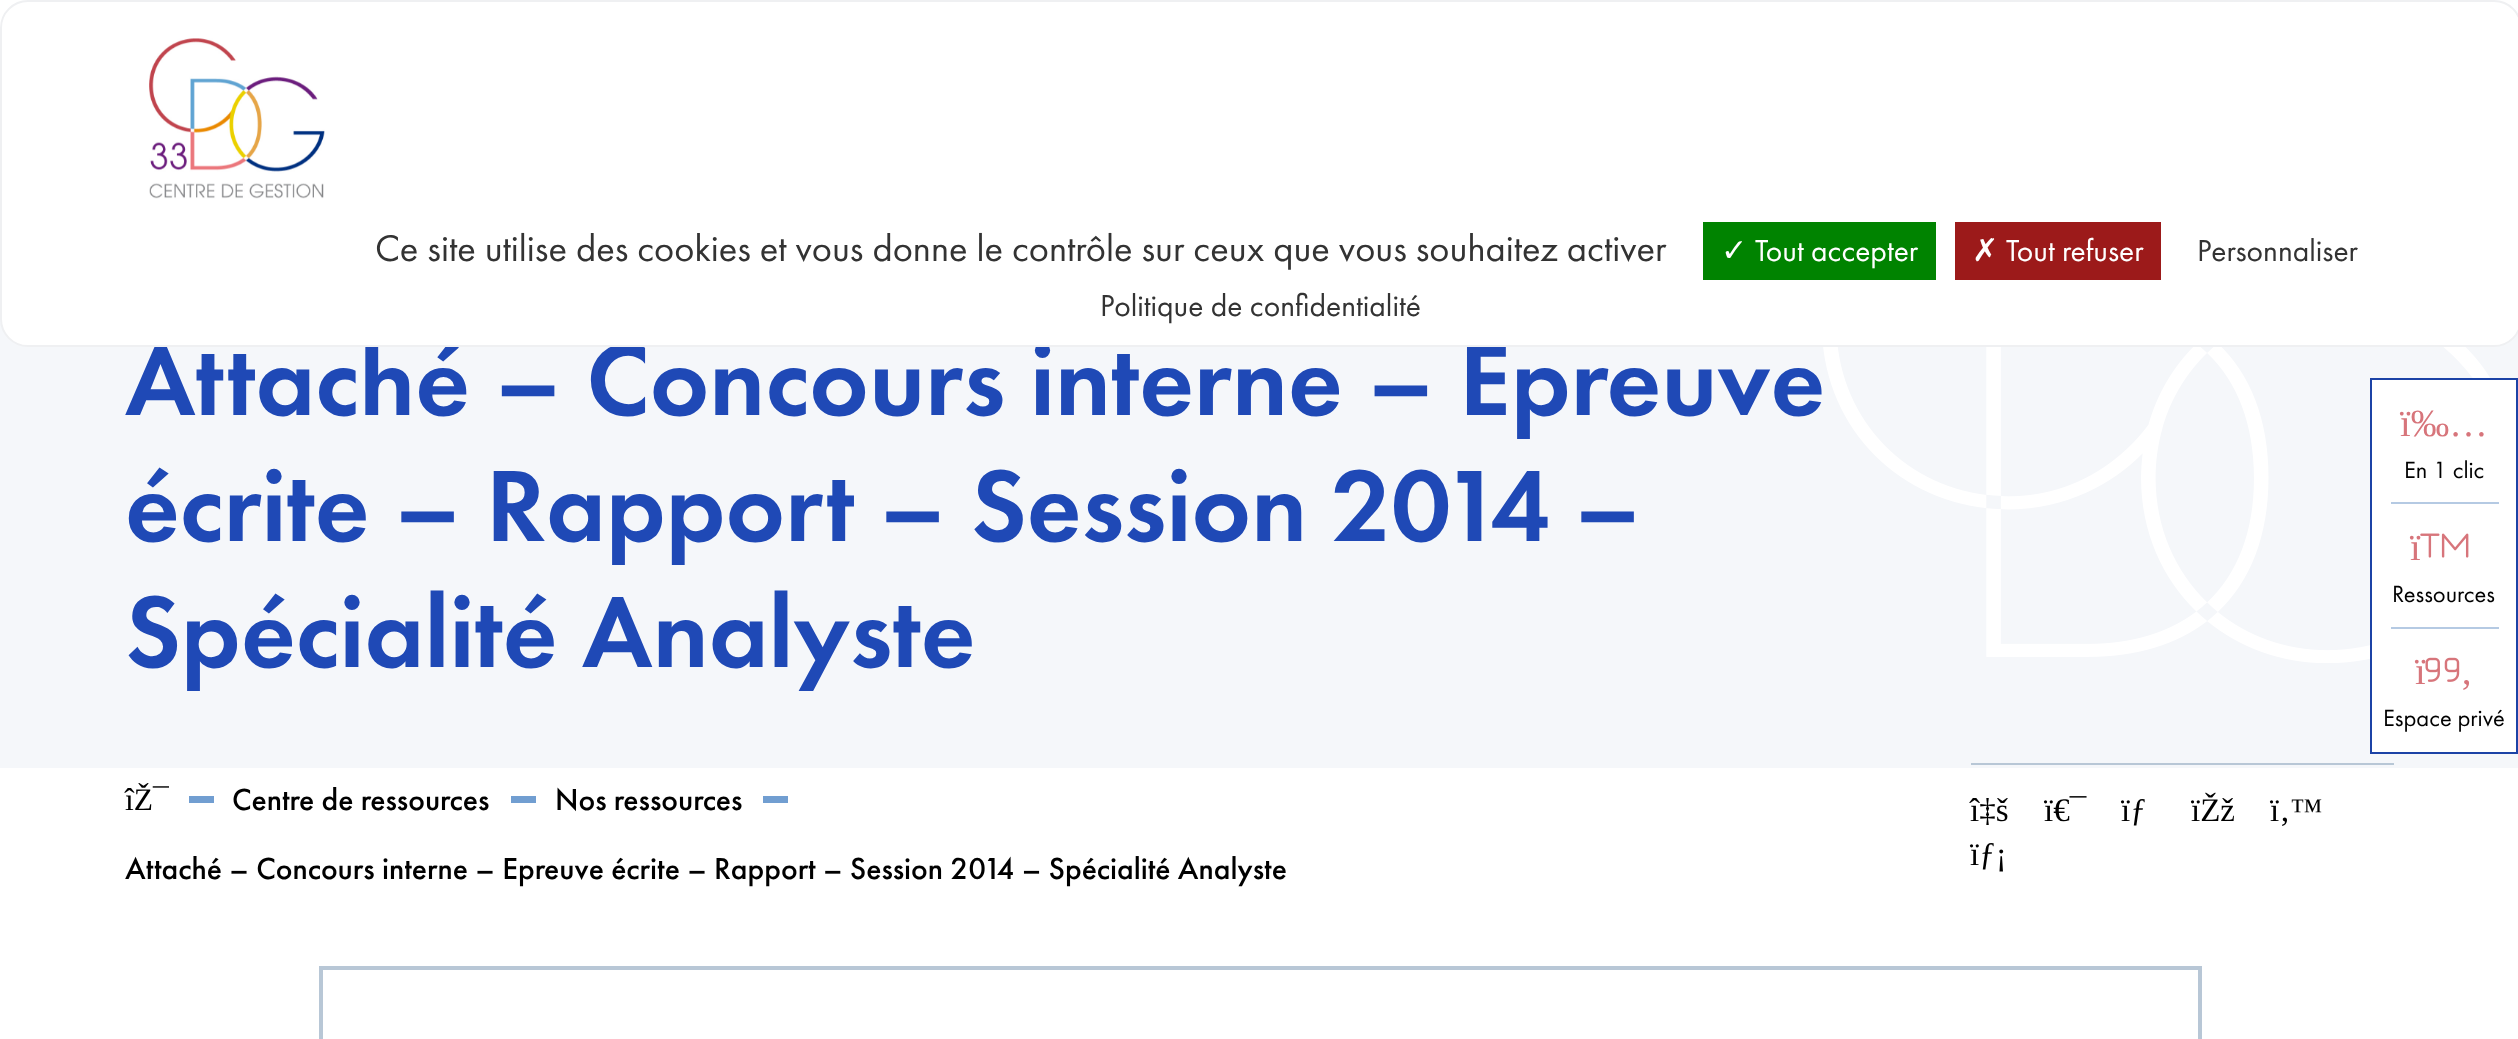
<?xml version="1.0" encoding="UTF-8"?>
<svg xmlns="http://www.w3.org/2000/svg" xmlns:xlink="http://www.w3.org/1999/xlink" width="2518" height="1039">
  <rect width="100%" height="100%" fill="#ffffff" />
  <rect y="319" width="2518" height="449" fill="#f5f7fa" />
  <image x="1823" y="347" width="667" height="316" xlink:href="image2.png" />
  <rect x="189" y="796" width="25" height="7" fill="#719ed1" />
  <rect x="511" y="796" width="25" height="7" fill="#719ed1" />
  <rect x="763" y="796" width="25" height="7" fill="#719ed1" />
  <rect x="1971" y="763" width="423" height="2" fill="#b8c7d6" />
  <rect x="321" y="968" width="1879" height="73" fill="none" stroke="#b8c7d6" stroke-width="4" />
  <rect x="2371" y="379" width="146" height="374" fill="#ffffff" stroke="#1c43a6" stroke-width="2" />
  <rect x="2391" y="502" width="108" height="2" fill="#b5cae3" />
  <image x="2420" y="533" width="49" height="25" xlink:href="image3.png" />
  <rect x="2391" y="627" width="108" height="2" fill="#b5cae3" />
  <image x="2425" y="657" width="35" height="25" xlink:href="image4.png" />
  <text x="125" y="415" style="font-family: Futura PT; font-size: 105px; font-weight: 500; fill: #1f49b6">Attaché – Concours interne – Epreuve</text>
  <rect x="1" y="1" width="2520" height="345" rx="27" fill="#ffffff" stroke="#eff0f2" stroke-width="2" />
  <text x="1100" y="316" style="font-family: Futura PT; font-size: 31.5px; fill: #333333">Politique de confidentialité</text>
  <text x="2197" y="261" style="font-family: Futura PT; font-size: 31.5px; fill: #333333">Personnaliser</text>
  <rect x="1955" y="222" width="206" height="58" fill="#9c1a1a" />
  <text x="2006" y="261" style="font-family: Futura PT; font-size: 31.5px; fill: #ffffff">Tout refuser</text>
  <text x="1972" y="261" style="font-family: DejaVu Sans; font-size: 31.5px; fill: #ffffff">✗</text>
  <rect x="1703" y="222" width="233" height="58" fill="#008300" />
  <text x="1755" y="261" style="font-family: Futura PT; font-size: 31.5px; fill: #ffffff">Tout accepter</text>
  <text x="1721" y="261" style="font-family: DejaVu Sans; font-size: 31.5px; fill: #ffffff">✓</text>
  <text x="375" y="261" style="font-family: Futura PT; font-size: 38.5px; fill: #333333">Ce site utilise des cookies et vous donne le contrôle sur ceux que vous souhaitez activer</text>
  <image x="149" y="38" width="176" height="161" xlink:href="image1.png" />
  <text x="125" y="541" style="font-family: Futura PT; font-size: 105px; font-weight: 500; fill: #1f49b6">écrite – Rapport – Session 2014 –</text>
  <text x="125" y="667" style="font-family: Futura PT; font-size: 105px; font-weight: 500; fill: #1f49b6">Spécialité Analyste</text>
  <text x="125" y="810" style="font-family: Liberation Serif; font-size: 31.5px; fill: #000000">îŽ¯</text>
  <text x="232" y="810" style="font-family: 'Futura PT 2'; font-size: 31.5px; font-weight: 500; fill: #000000">Centre de ressources</text>
  <text x="555" y="810" style="font-family: 'Futura PT 2'; font-size: 31.5px; font-weight: 500; fill: #000000">Nos ressources</text>
  <text x="125" y="879" style="font-family: 'Futura PT 2'; font-size: 31.5px; font-weight: 500; fill: #000000">Attaché – Concours interne – Epreuve écrite – Rapport – Session 2014 – Spécialité Analyste</text>
  <text x="1970" y="821" style="font-family: Liberation Serif; font-size: 33px; fill: #000000">î‡š</text>
  <text x="2044" y="821" style="font-family: Liberation Serif; font-size: 33px; fill: #000000">ï€¯</text>
  <text x="2121" y="821" style="font-family: Liberation Serif; font-size: 33px; fill: #000000">ïƒ</text>
  <text x="2191" y="821" style="font-family: Liberation Serif; font-size: 33px; fill: #000000">ïŽž</text>
  <text x="2270" y="821" style="font-family: Liberation Serif; font-size: 33px; fill: #000000">ï‚™</text>
  <text x="1970" y="865" style="font-family: Liberation Serif; font-size: 33px; fill: #000000">ïƒ¡</text>
  <text x="2400" y="436" style="font-family: Liberation Serif; font-size: 38.5px; fill: #d7757b">ï‰…</text>
  <text x="2404" y="478" style="font-family: Futura PT; font-size: 24.5px; fill: #000000">En 1 clic</text>
  <text x="2410" y="560" style="font-family: Liberation Serif; font-size: 38.5px; fill: #d7757b">ï</text>
  <text x="2392" y="602" style="font-family: Futura PT; font-size: 24.5px; fill: #000000">Ressources</text>
  <text x="2415" y="684" style="font-family: Liberation Serif; font-size: 38.5px; fill: #d7757b">ï</text>
  <text x="2460" y="684" style="font-family: Liberation Serif; font-size: 38.5px; fill: #d7757b">‚</text>
  <text x="2383" y="726" style="font-family: Futura PT; font-size: 24.5px; fill: #000000">Espace privé</text>
</svg>
